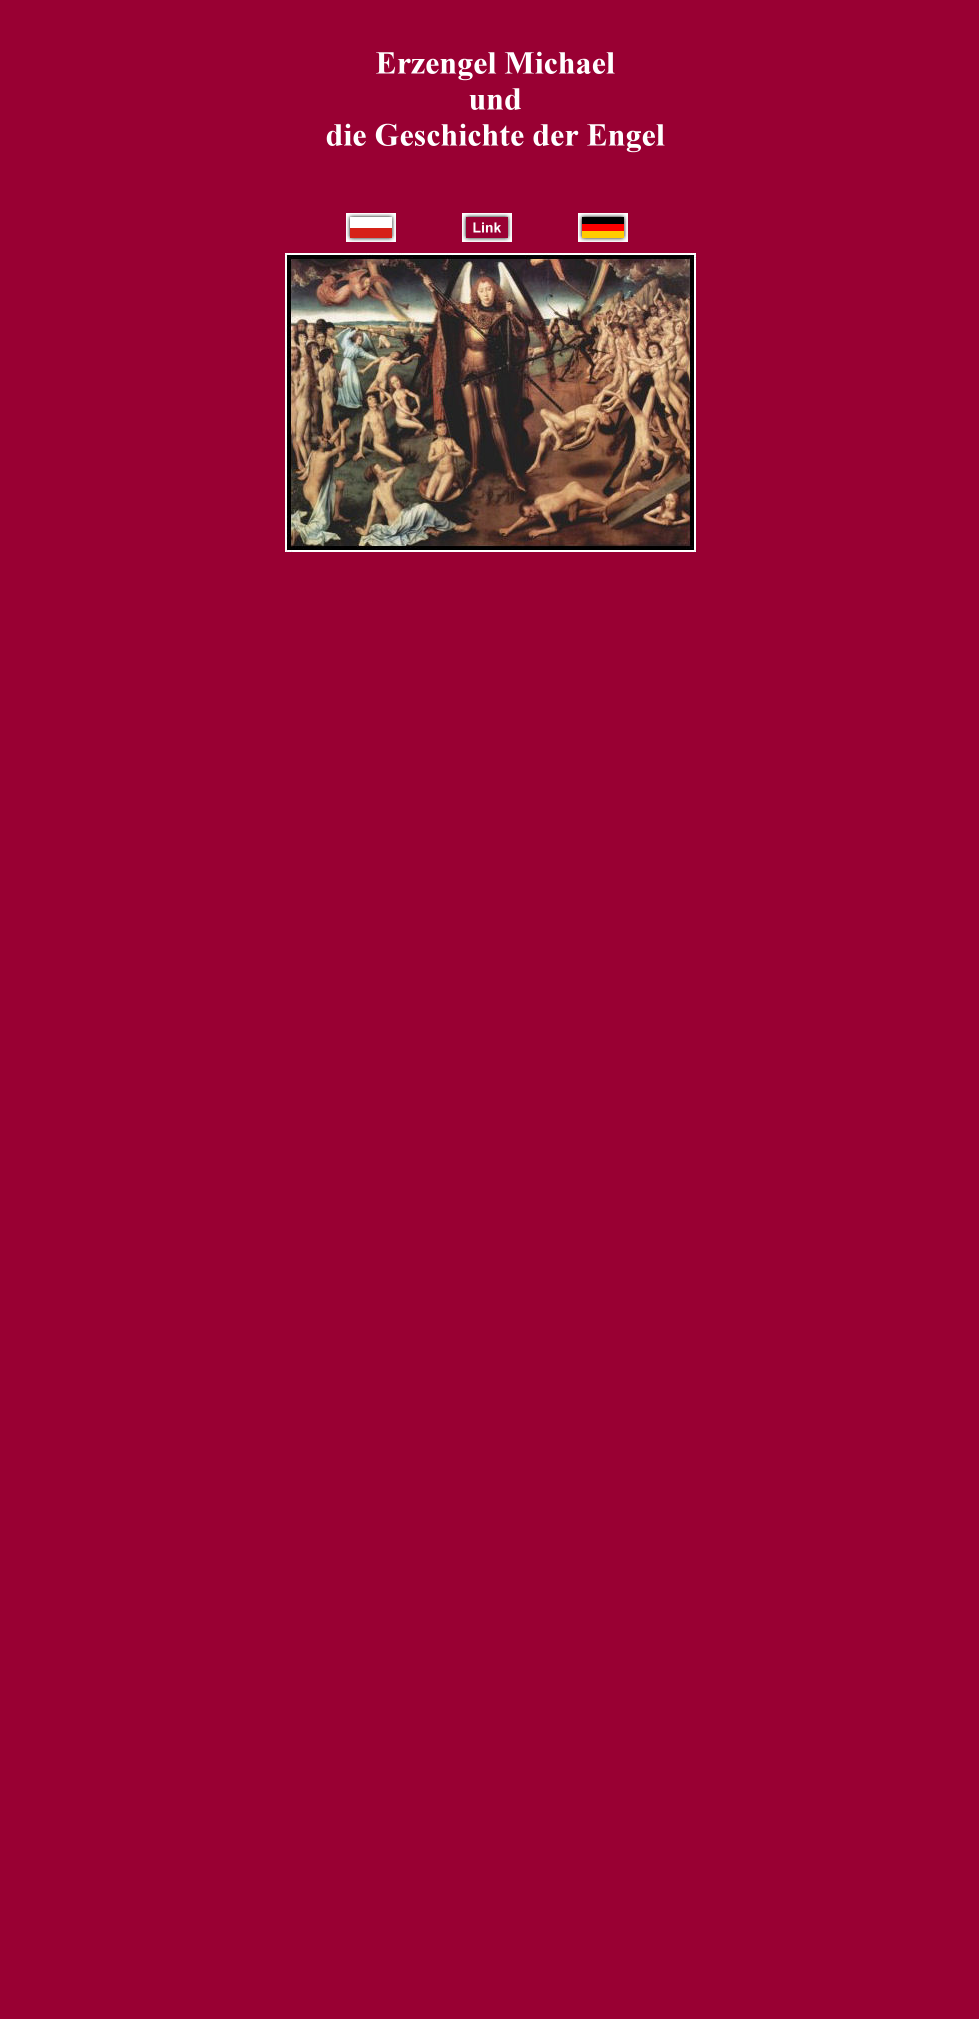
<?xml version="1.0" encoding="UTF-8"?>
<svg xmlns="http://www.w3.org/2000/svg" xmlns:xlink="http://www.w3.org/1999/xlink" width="979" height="2019">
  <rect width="100%" height="100%" fill="#990033" />
  <image x="326" y="51" width="339" height="102" xlink:href="image1.png" />
  <image x="346" y="213" width="50" height="29" xlink:href="image2.png" />
  <image x="462" y="213" width="50" height="29" xlink:href="image3.png" />
  <image x="578" y="213" width="50" height="29" xlink:href="image4.png" />
  <image x="285" y="253" width="411" height="299" xlink:href="image5.png" />
</svg>
